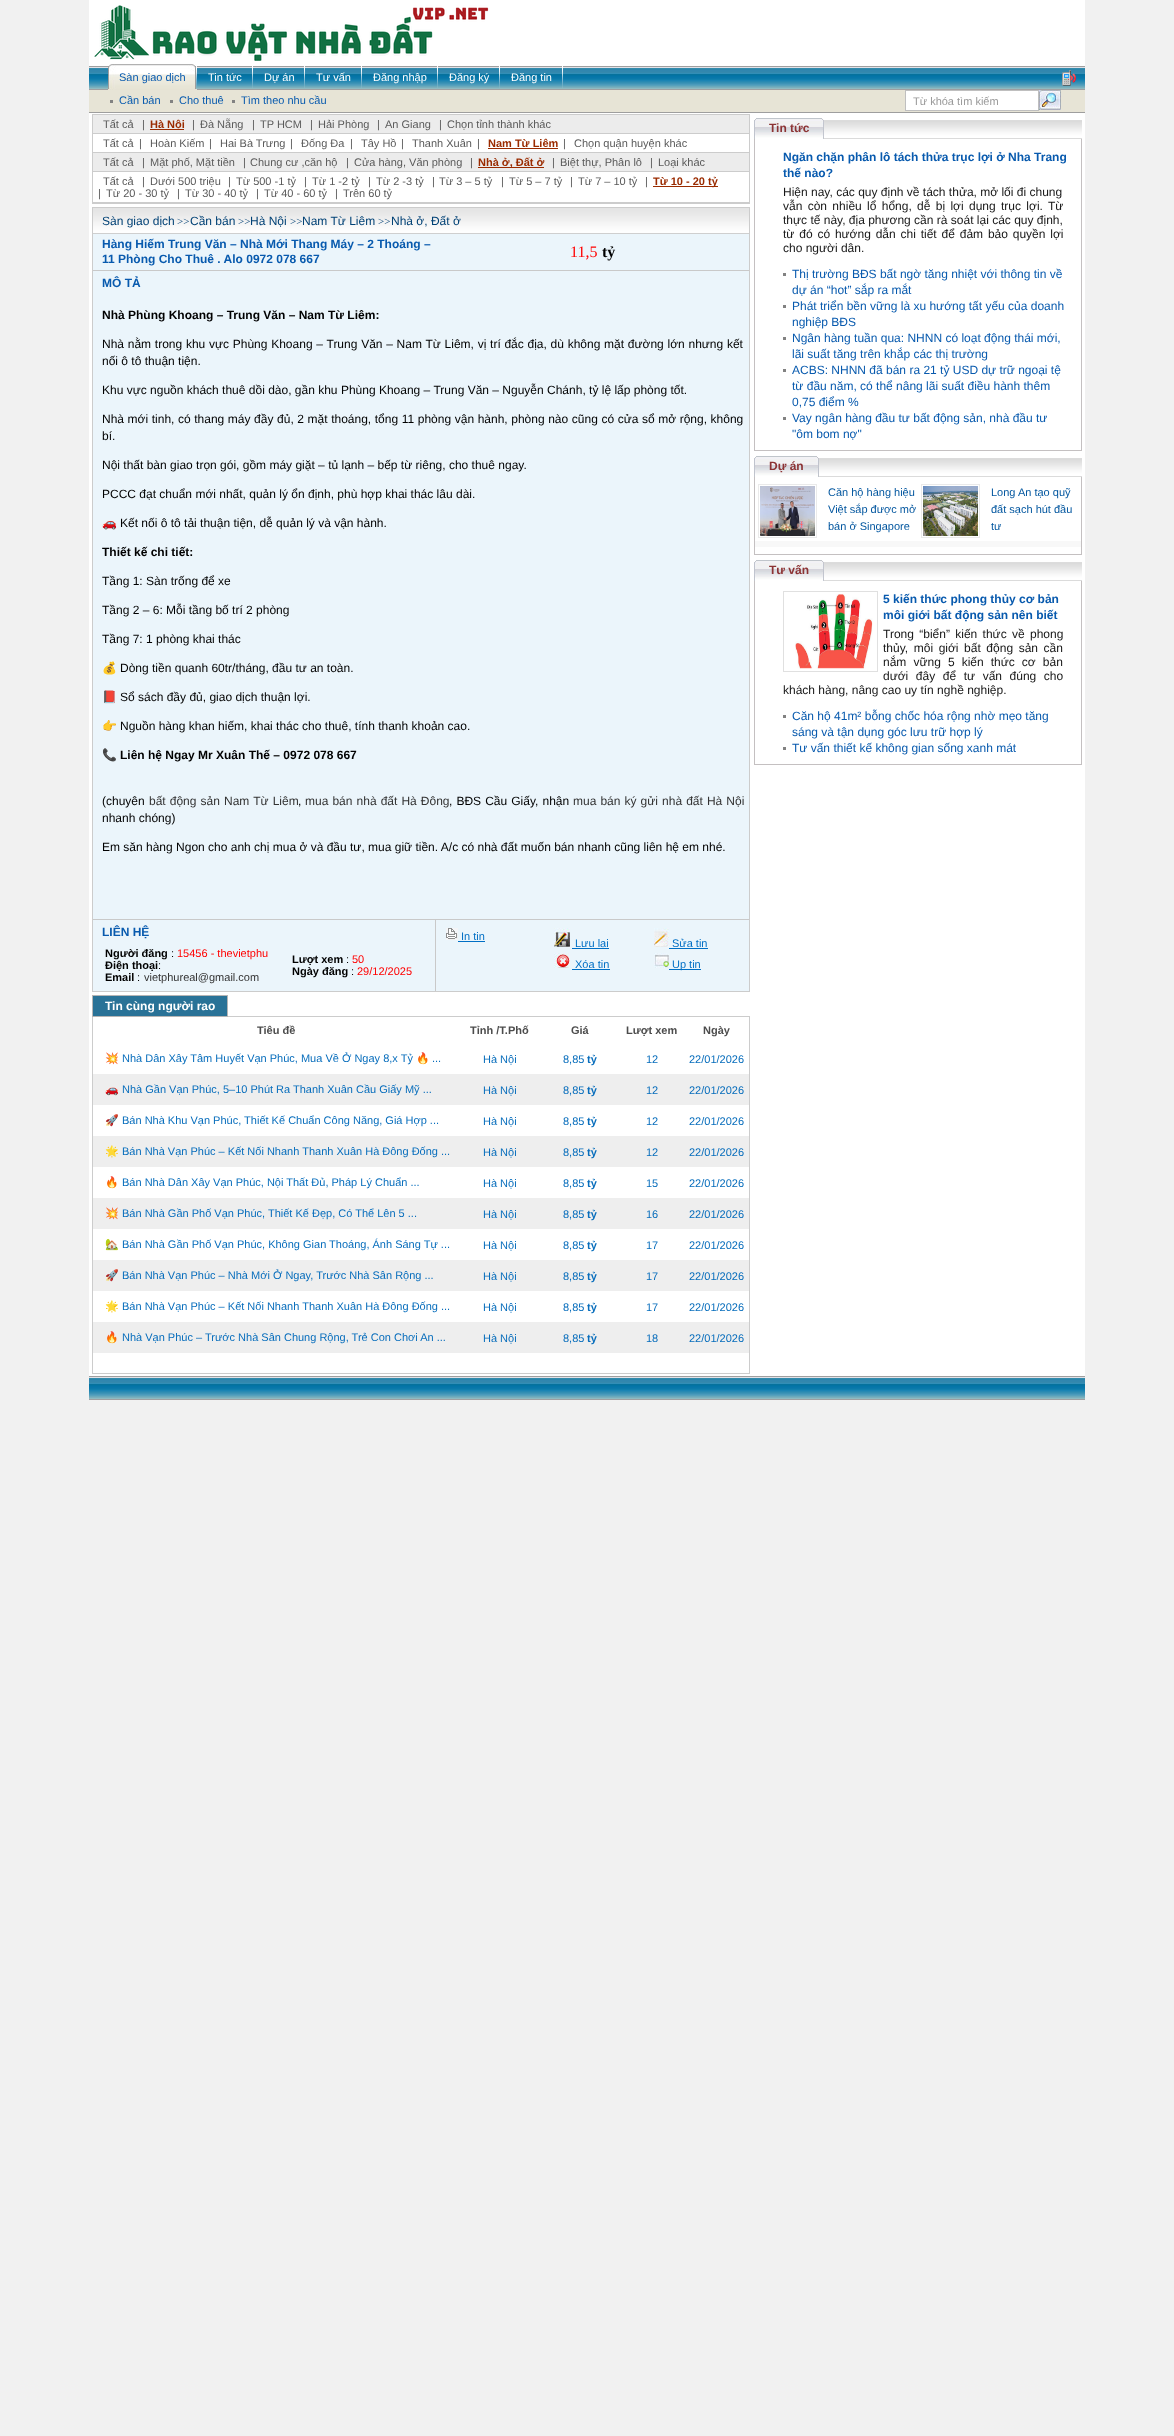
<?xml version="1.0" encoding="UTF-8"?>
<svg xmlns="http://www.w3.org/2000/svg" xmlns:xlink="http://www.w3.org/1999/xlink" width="1174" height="2436">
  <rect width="100%" height="100%" fill="#f1f1f1" />
  <rect x="89" width="996" height="1376" fill="#ffffff" />
  <image x="94" y="5" width="395" height="56" xlink:href="image1.png" />
  <image x="89" y="66" width="996" height="24" xlink:href="image2.png" />
  <image x="108" y="64" width="34" height="26" xlink:href="image3.png" />
  <image x="142" y="64" width="55" height="26" xlink:href="image4.png" />
  <image x="252" y="66" width="1" height="22" xlink:href="image5.png" />
  <image x="304" y="66" width="1" height="22" xlink:href="image5.png" />
  <image x="361" y="66" width="1" height="22" xlink:href="image5.png" />
  <image x="437" y="66" width="1" height="22" xlink:href="image5.png" />
  <image x="499" y="66" width="1" height="22" xlink:href="image5.png" />
  <image x="562" y="66" width="1" height="22" xlink:href="image5.png" />
  <image x="1062" y="70" width="14" height="16" xlink:href="image6.png" />
  <rect x="89" y="90" width="996" height="22" fill="#e7e4d6" />
  <rect x="89" y="112" width="996" height="1" fill="#9e9e9e" />
  <rect x="110" y="100" width="3" height="3" fill="#828282" />
  <rect x="170" y="100" width="3" height="3" fill="#828282" />
  <rect x="232" y="100" width="3" height="3" fill="#828282" />
  <rect x="905.5" y="90.5" width="133" height="20" fill="#ffffff" stroke="#bfbfbf" />
  <image x="1039" y="90" width="22" height="20" xlink:href="image7.png" />
  <rect x="92.5" y="114.5" width="657" height="89" fill="none" stroke="#cccccc" />
  <rect x="93" y="115" width="656" height="18" fill="#ececec" />
  <rect x="93" y="133" width="656" height="1" fill="#cccccc" />
  <rect x="150" y="129" width="34" height="1" fill="#9a2b00" />
  <rect x="93" y="152" width="656" height="1" fill="#cccccc" />
  <rect x="488" y="148" width="70" height="1" fill="#9a2b00" />
  <rect x="93" y="153" width="656" height="18" fill="#ececec" />
  <rect x="93" y="171" width="656" height="1" fill="#cccccc" />
  <rect x="478" y="167" width="66" height="1" fill="#9a2b00" />
  <rect x="93" y="202" width="656" height="1" fill="#cccccc" />
  <rect x="653" y="186" width="65" height="1" fill="#9a2b00" />
  <rect x="93" y="234" width="656" height="757" fill="#ebf5fb" />
  <rect x="92.5" y="207.5" width="657" height="784" fill="none" stroke="#cccccc" />
  <image x="93" y="208" width="656" height="26" xlink:href="image8.png" />
  <rect x="93" y="270" width="656" height="1" fill="#c9c9c9" />
  <rect x="93" y="919" width="656" height="1" fill="#c9c9c9" />
  <rect x="435" y="920" width="1" height="71" fill="#c9c9c9" />
  <image x="446" y="928" width="12" height="12" xlink:href="image9.png" />
  <rect x="458" y="941" width="27" height="1" fill="#006fc5" />
  <image x="554" y="928" width="16" height="19" xlink:href="image10.png" />
  <rect x="572" y="948" width="37" height="1" fill="#006fc5" />
  <image x="654" y="928" width="15" height="19" xlink:href="image11.png" />
  <rect x="669" y="948" width="39" height="1" fill="#006fc5" />
  <image x="554" y="953" width="16" height="15" xlink:href="image12.png" />
  <rect x="572" y="969" width="38" height="1" fill="#006fc5" />
  <image x="654" y="953" width="15" height="15" xlink:href="image13.png" />
  <rect x="669" y="969" width="32" height="1" fill="#006fc5" />
  <rect x="92.5" y="1016.5" width="657" height="357" fill="none" stroke="#cccccc" />
  <rect x="92.5" y="995.5" width="135" height="21" fill="#297297" stroke="#b5b5b5" />
  <rect x="93" y="1074" width="656" height="31" fill="#eeeeee" />
  <rect x="93" y="1136" width="656" height="31" fill="#eeeeee" />
  <rect x="93" y="1198" width="656" height="31" fill="#eeeeee" />
  <rect x="93" y="1260" width="656" height="31" fill="#eeeeee" />
  <rect x="93" y="1322" width="656" height="31" fill="#eeeeee" />
  <image x="824" y="120" width="258" height="19" xlink:href="image14.png" />
  <image x="754" y="118" width="5" height="21" xlink:href="image15.png" />
  <image x="759" y="118" width="65" height="21" xlink:href="image16.png" />
  <rect x="1081" y="139" width="1" height="312" fill="#c4c0c1" />
  <rect x="754" y="450" width="328" height="1" fill="#c4c0c1" />
  <rect x="754" y="139" width="1" height="312" fill="#c4c0c1" />
  <rect x="783" y="273" width="3" height="3" fill="#828282" />
  <rect x="783" y="305" width="3" height="3" fill="#828282" />
  <rect x="783" y="337" width="3" height="3" fill="#828282" />
  <rect x="783" y="369" width="3" height="3" fill="#828282" />
  <rect x="783" y="417" width="3" height="3" fill="#828282" />
  <image x="819" y="458" width="263" height="19" xlink:href="image17.png" />
  <image x="754" y="456" width="5" height="21" xlink:href="image15.png" />
  <image x="759" y="456" width="60" height="21" xlink:href="image18.png" />
  <rect x="1081" y="477" width="1" height="78" fill="#c4c0c1" />
  <rect x="754" y="554" width="328" height="1" fill="#c4c0c1" />
  <rect x="754" y="477" width="1" height="78" fill="#c4c0c1" />
  <rect x="755" y="541" width="326" height="6" fill="#f8f8f8" />
  <rect x="758.5" y="484.5" width="58" height="53" fill="none" stroke="#eaeaea" />
  <image x="760" y="486" width="55" height="50" xlink:href="image19.png" />
  <rect x="921.5" y="484.5" width="58" height="53" fill="none" stroke="#eaeaea" />
  <image x="923" y="486" width="55" height="50" xlink:href="image20.png" />
  <image x="824" y="562" width="258" height="19" xlink:href="image14.png" />
  <image x="754" y="560" width="5" height="21" xlink:href="image15.png" />
  <image x="759" y="560" width="65" height="21" xlink:href="image16.png" />
  <rect x="1081" y="581" width="1" height="184" fill="#c4c0c1" />
  <rect x="754" y="764" width="328" height="1" fill="#c4c0c1" />
  <rect x="754" y="581" width="1" height="184" fill="#c4c0c1" />
  <rect x="783.5" y="591.5" width="94" height="80" fill="none" stroke="#e0e0e0" />
  <image x="795" y="594" width="78" height="75" xlink:href="image21.png" />
  <rect x="783" y="715" width="3" height="3" fill="#828282" />
  <rect x="783" y="747" width="3" height="3" fill="#828282" />
  <image x="89" y="1376" width="996" height="24" xlink:href="image2.png" />
  <text x="119" y="81" style="font-family: Liberation Sans; font-size: 11px; fill: #085aae">Sàn giao dịch</text>
  <text x="208" y="81" style="font-family: Liberation Sans; font-size: 11px; fill: #ffffff">Tin tức</text>
  <text x="264" y="81" style="font-family: Liberation Sans; font-size: 11px; fill: #ffffff">Dự án</text>
  <text x="316" y="81" style="font-family: Liberation Sans; font-size: 11px; fill: #ffffff">Tư vấn</text>
  <text x="373" y="81" style="font-family: Liberation Sans; font-size: 11px; fill: #ffffff">Đăng nhập</text>
  <text x="449" y="81" style="font-family: Liberation Sans; font-size: 11px; fill: #ffffff">Đăng ký</text>
  <text x="511" y="81" style="font-family: Liberation Sans; font-size: 11px; fill: #ffffff">Đăng tin</text>
  <text x="119" y="104" style="font-family: Liberation Sans; font-size: 11px; fill: #085aae">Cần bán</text>
  <text x="179" y="104" style="font-family: Liberation Sans; font-size: 11px; fill: #085aae">Cho thuê</text>
  <text x="241" y="104" style="font-family: Liberation Sans; font-size: 11px; fill: #085aae">Tìm theo nhu cầu</text>
  <text x="913" y="105" style="font-family: Liberation Sans; font-size: 11px; fill: #999999">Từ khóa tìm kiếm</text>
  <text x="103" y="128" style="font-family: Liberation Sans; font-size: 11px; fill: #5a5a5a">Tất cả</text>
  <text x="142" y="128" style="font-family: Liberation Sans; font-size: 11px; fill: #5a5a5a">|</text>
  <text x="150" y="128" style="font-family: Liberation Sans; font-size: 11px; font-weight: bold; fill: #9a2b00">Hà Nội</text>
  <text x="192" y="128" style="font-family: Liberation Sans; font-size: 11px; fill: #5a5a5a">|</text>
  <text x="200" y="128" style="font-family: Liberation Sans; font-size: 11px; fill: #5a5a5a">Đà Nẵng</text>
  <text x="252" y="128" style="font-family: Liberation Sans; font-size: 11px; fill: #5a5a5a">|</text>
  <text x="260" y="128" style="font-family: Liberation Sans; font-size: 11px; fill: #5a5a5a">TP HCM</text>
  <text x="310" y="128" style="font-family: Liberation Sans; font-size: 11px; fill: #5a5a5a">|</text>
  <text x="318" y="128" style="font-family: Liberation Sans; font-size: 11px; fill: #5a5a5a">Hải Phòng</text>
  <text x="377" y="128" style="font-family: Liberation Sans; font-size: 11px; fill: #5a5a5a">|</text>
  <text x="385" y="128" style="font-family: Liberation Sans; font-size: 11px; fill: #5a5a5a">An Giang</text>
  <text x="439" y="128" style="font-family: Liberation Sans; font-size: 11px; fill: #5a5a5a">|</text>
  <text x="447" y="128" style="font-family: Liberation Sans; font-size: 11px; fill: #5a5a5a">Chọn tỉnh thành khác</text>
  <text x="103" y="147" style="font-family: Liberation Sans; font-size: 11px; fill: #5a5a5a">Tất cả</text>
  <text x="139" y="147" style="font-family: Liberation Sans; font-size: 11px; fill: #5a5a5a">|</text>
  <text x="150" y="147" style="font-family: Liberation Sans; font-size: 11px; fill: #5a5a5a">Hoàn Kiếm</text>
  <text x="209" y="147" style="font-family: Liberation Sans; font-size: 11px; fill: #5a5a5a">|</text>
  <text x="220" y="147" style="font-family: Liberation Sans; font-size: 11px; fill: #5a5a5a">Hai Bà Trưng</text>
  <text x="290" y="147" style="font-family: Liberation Sans; font-size: 11px; fill: #5a5a5a">|</text>
  <text x="301" y="147" style="font-family: Liberation Sans; font-size: 11px; fill: #5a5a5a">Đống Đa</text>
  <text x="350" y="147" style="font-family: Liberation Sans; font-size: 11px; fill: #5a5a5a">|</text>
  <text x="361" y="147" style="font-family: Liberation Sans; font-size: 11px; fill: #5a5a5a">Tây Hồ</text>
  <text x="401" y="147" style="font-family: Liberation Sans; font-size: 11px; fill: #5a5a5a">|</text>
  <text x="412" y="147" style="font-family: Liberation Sans; font-size: 11px; fill: #5a5a5a">Thanh Xuân</text>
  <text x="477" y="147" style="font-family: Liberation Sans; font-size: 11px; fill: #5a5a5a">|</text>
  <text x="488" y="147" style="font-family: Liberation Sans; font-size: 11px; font-weight: bold; fill: #9a2b00">Nam Từ Liêm</text>
  <text x="563" y="147" style="font-family: Liberation Sans; font-size: 11px; fill: #5a5a5a">|</text>
  <text x="574" y="147" style="font-family: Liberation Sans; font-size: 11px; fill: #5a5a5a">Chọn quận huyện khác</text>
  <text x="103" y="166" style="font-family: Liberation Sans; font-size: 11px; fill: #5a5a5a">Tất cả</text>
  <text x="142" y="166" style="font-family: Liberation Sans; font-size: 11px; fill: #5a5a5a">|</text>
  <text x="150" y="166" style="font-family: Liberation Sans; font-size: 11px; fill: #5a5a5a">Mặt phố, Mặt tiền</text>
  <text x="243" y="166" style="font-family: Liberation Sans; font-size: 11px; fill: #5a5a5a">|</text>
  <text x="250" y="166" style="font-family: Liberation Sans; font-size: 11px; fill: #5a5a5a">Chung cư ,căn hộ</text>
  <text x="346" y="166" style="font-family: Liberation Sans; font-size: 11px; fill: #5a5a5a">|</text>
  <text x="354" y="166" style="font-family: Liberation Sans; font-size: 11px; fill: #5a5a5a">Cửa hàng, Văn phòng</text>
  <text x="470" y="166" style="font-family: Liberation Sans; font-size: 11px; fill: #5a5a5a">|</text>
  <text x="478" y="166" style="font-family: Liberation Sans; font-size: 11px; font-weight: bold; fill: #9a2b00">Nhà ở, Đất ở</text>
  <text x="552" y="166" style="font-family: Liberation Sans; font-size: 11px; fill: #5a5a5a">|</text>
  <text x="560" y="166" style="font-family: Liberation Sans; font-size: 11px; fill: #5a5a5a">Biệt thự, Phân lô</text>
  <text x="650" y="166" style="font-family: Liberation Sans; font-size: 11px; fill: #5a5a5a">|</text>
  <text x="658" y="166" style="font-family: Liberation Sans; font-size: 11px; fill: #5a5a5a">Loại khác</text>
  <text x="103" y="185" style="font-family: Liberation Sans; font-size: 11px; fill: #5a5a5a">Tất cả</text>
  <text x="142" y="185" style="font-family: Liberation Sans; font-size: 11px; fill: #5a5a5a">|</text>
  <text x="150" y="185" style="font-family: Liberation Sans; font-size: 11px; fill: #5a5a5a">Dưới 500 triệu</text>
  <text x="228" y="185" style="font-family: Liberation Sans; font-size: 11px; fill: #5a5a5a">|</text>
  <text x="236" y="185" style="font-family: Liberation Sans; font-size: 11px; fill: #5a5a5a">Từ 500 -1 tỷ</text>
  <text x="304" y="185" style="font-family: Liberation Sans; font-size: 11px; fill: #5a5a5a">|</text>
  <text x="312" y="185" style="font-family: Liberation Sans; font-size: 11px; fill: #5a5a5a">Từ 1 -2 tỷ</text>
  <text x="368" y="185" style="font-family: Liberation Sans; font-size: 11px; fill: #5a5a5a">|</text>
  <text x="376" y="185" style="font-family: Liberation Sans; font-size: 11px; fill: #5a5a5a">Từ 2 -3 tỷ</text>
  <text x="432" y="185" style="font-family: Liberation Sans; font-size: 11px; fill: #5a5a5a">|</text>
  <text x="439" y="185" style="font-family: Liberation Sans; font-size: 11px; fill: #5a5a5a">Từ 3 – 5 tỷ</text>
  <text x="501" y="185" style="font-family: Liberation Sans; font-size: 11px; fill: #5a5a5a">|</text>
  <text x="509" y="185" style="font-family: Liberation Sans; font-size: 11px; fill: #5a5a5a">Từ 5 – 7 tỷ</text>
  <text x="570" y="185" style="font-family: Liberation Sans; font-size: 11px; fill: #5a5a5a">|</text>
  <text x="578" y="185" style="font-family: Liberation Sans; font-size: 11px; fill: #5a5a5a">Từ 7 – 10 tỷ</text>
  <text x="645" y="185" style="font-family: Liberation Sans; font-size: 11px; fill: #5a5a5a">|</text>
  <text x="653" y="185" style="font-family: Liberation Sans; font-size: 11px; font-weight: bold; fill: #9a2b00">Từ 10 - 20 tỷ</text>
  <text x="98" y="197" style="font-family: Liberation Sans; font-size: 11px; fill: #5a5a5a">|</text>
  <text x="106" y="197" style="font-family: Liberation Sans; font-size: 11px; fill: #5a5a5a">Từ 20 - 30 tỷ</text>
  <text x="177" y="197" style="font-family: Liberation Sans; font-size: 11px; fill: #5a5a5a">|</text>
  <text x="185" y="197" style="font-family: Liberation Sans; font-size: 11px; fill: #5a5a5a">Từ 30 - 40 tỷ</text>
  <text x="256" y="197" style="font-family: Liberation Sans; font-size: 11px; fill: #5a5a5a">|</text>
  <text x="264" y="197" style="font-family: Liberation Sans; font-size: 11px; fill: #5a5a5a">Từ 40 - 60 tỷ</text>
  <text x="335" y="197" style="font-family: Liberation Sans; font-size: 11px; fill: #5a5a5a">|</text>
  <text x="343" y="197" style="font-family: Liberation Sans; font-size: 11px; fill: #5a5a5a">Trên 60 tỷ</text>
  <text x="102" y="225" style="font-family: Liberation Sans; font-size: 12px; fill: #004175">Sàn giao dịch</text>
  <text x="177" y="225" style="font-family: Liberation Serif; font-size: 11px; fill: #004175">&gt;&gt;</text>
  <text x="190" y="225" style="font-family: Liberation Sans; font-size: 12px; fill: #004175">Cần bán</text>
  <text x="238" y="225" style="font-family: Liberation Serif; font-size: 11px; fill: #004175">&gt;&gt;</text>
  <text x="250" y="225" style="font-family: Liberation Sans; font-size: 12px; fill: #004175">Hà Nội</text>
  <text x="290" y="225" style="font-family: Liberation Serif; font-size: 11px; fill: #004175">&gt;&gt;</text>
  <text x="302" y="225" style="font-family: Liberation Sans; font-size: 12px; fill: #004175">Nam Từ Liêm</text>
  <text x="378" y="225" style="font-family: Liberation Serif; font-size: 11px; fill: #004175">&gt;&gt;</text>
  <text x="391" y="225" style="font-family: Liberation Sans; font-size: 12px; fill: #004175">Nhà ở, Đất ở</text>
  <text x="102" y="248" style="font-family: Liberation Sans; font-size: 12px; font-weight: bold; fill: #085aae">Hàng Hiếm Trung Văn – Nhà Mới Thang Máy – 2 Thoáng –</text>
  <text x="102" y="263" style="font-family: Liberation Sans; font-size: 12px; font-weight: bold; fill: #085aae">11 Phòng Cho Thuê . Alo 0972 078 667</text>
  <text x="570" y="257" style="font-family: Liberation Serif; font-size: 16px; fill: #ff0000">11,5</text>
  <text x="602" y="257" style="font-family: Liberation Serif; font-size: 16px; font-weight: bold; fill: #000000">tỷ</text>
  <text x="102" y="287" style="font-family: Liberation Sans; font-size: 12px; font-weight: bold; fill: #085aae">MÔ TẢ</text>
  <text x="102" y="319" style="font-family: Liberation Sans; font-size: 12px; font-weight: bold; fill: #000000">Nhà Phùng Khoang – Trung Văn – Nam Từ Liêm:</text>
  <text x="102" y="348" word-spacing="0.4" style="font-family: Liberation Sans; font-size: 12px; fill: #000000">Nhà nằm trong khu vực Phùng Khoang – Trung Văn – Nam Từ Liêm, vị trí đắc địa, dù không mặt đường lớn nhưng kết</text>
  <text x="102" y="365" style="font-family: Liberation Sans; font-size: 12px; fill: #000000">nối ô tô thuận tiện.</text>
  <text x="102" y="394" style="font-family: Liberation Sans; font-size: 12px; fill: #000000">Khu vực nguồn khách thuê dồi dào, gần khu Phùng Khoang – Trung Văn – Nguyễn Chánh, tỷ lệ lấp phòng tốt.</text>
  <text x="102" y="423" word-spacing="0.25" style="font-family: Liberation Sans; font-size: 12px; fill: #000000">Nhà mới tinh, có thang máy đầy đủ, 2 mặt thoáng, tổng 11 phòng vận hành, phòng nào cũng có cửa sổ mở rộng, không</text>
  <text x="102" y="440" style="font-family: Liberation Sans; font-size: 12px; fill: #000000">bí.</text>
  <text x="102" y="469" style="font-family: Liberation Sans; font-size: 12px; fill: #000000">Nội thất bàn giao trọn gói, gồm máy giặt – tủ lạnh – bếp từ riêng, cho thuê ngay.</text>
  <text x="102" y="498" style="font-family: Liberation Sans; font-size: 12px; fill: #000000">PCCC đạt chuẩn mới nhất, quản lý ổn định, phù hợp khai thác lâu dài.</text>
  <text x="102" y="527" style="font-family: Noto Color Emoji; font-size: 12px; fill: #000000">🚗</text>
  <text x="120" y="527" style="font-family: Liberation Sans; font-size: 12px; fill: #000000">Kết nối ô tô tải thuận tiện, dễ quản lý và vận hành.</text>
  <text x="102" y="556" style="font-family: Liberation Sans; font-size: 12px; font-weight: bold; fill: #000000">Thiết kế chi tiết:</text>
  <text x="102" y="585" style="font-family: Liberation Sans; font-size: 12px; fill: #000000">Tầng 1: Sàn trống để xe</text>
  <text x="102" y="614" style="font-family: Liberation Sans; font-size: 12px; fill: #000000">Tầng 2 – 6: Mỗi tầng bố trí 2 phòng</text>
  <text x="102" y="643" style="font-family: Liberation Sans; font-size: 12px; fill: #000000">Tầng 7: 1 phòng khai thác</text>
  <text x="102" y="672" style="font-family: Noto Color Emoji; font-size: 12px; fill: #000000">💰</text>
  <text x="120" y="672" style="font-family: Liberation Sans; font-size: 12px; fill: #000000">Dòng tiền quanh 60tr/tháng, đầu tư an toàn.</text>
  <text x="102" y="701" style="font-family: Noto Color Emoji; font-size: 12px; fill: #000000">📕</text>
  <text x="120" y="701" style="font-family: Liberation Sans; font-size: 12px; fill: #000000">Sổ sách đầy đủ, giao dịch thuận lợi.</text>
  <text x="102" y="730" style="font-family: Noto Color Emoji; font-size: 12px; fill: #000000">👉</text>
  <text x="120" y="730" style="font-family: Liberation Sans; font-size: 12px; fill: #000000">Nguồn hàng khan hiếm, khai thác cho thuê, tính thanh khoản cao.</text>
  <text x="102" y="759" style="font-family: Noto Color Emoji; font-size: 12px; fill: #000000">📞</text>
  <text x="120" y="759" style="font-family: Liberation Sans; font-size: 12px; font-weight: bold; fill: #000000">Liên hệ Ngay Mr Xuân Thế – 0972 078 667</text>
  <text x="102" y="805" style="font-family: Liberation Sans; font-size: 12px; fill: #000000">(chuyên</text>
  <text x="149" y="805" word-spacing="0.75" style="font-family: Liberation Sans; font-size: 12px; fill: #333333">bất động sản Nam Từ Liêm</text>
  <text x="298" y="805" style="font-family: Liberation Sans; font-size: 12px; fill: #000000">,</text>
  <text x="305" y="805" word-spacing="0.75" style="font-family: Liberation Sans; font-size: 12px; fill: #333333">mua bán nhà đất Hà Đông</text>
  <text x="449" y="805" word-spacing="0.75" style="font-family: Liberation Sans; font-size: 12px; fill: #000000">, BĐS Cầu Giấy, nhận</text>
  <text x="573" y="805" word-spacing="0.75" style="font-family: Liberation Sans; font-size: 12px; fill: #333333">mua bán ký gửi nhà đất Hà Nội</text>
  <text x="102" y="822" style="font-family: Liberation Sans; font-size: 12px; fill: #000000">nhanh chóng)</text>
  <text x="102" y="851" style="font-family: Liberation Sans; font-size: 12px; fill: #000000">Em săn hàng Ngon cho anh chị mua ở và đầu tư, mua giữ tiền. A/c có nhà đất muốn bán nhanh cũng liên hệ em nhé.</text>
  <text x="102" y="936" style="font-family: Liberation Sans; font-size: 12px; font-weight: bold; fill: #085aae">LIÊN HỆ</text>
  <text x="105" y="957" style="font-family: Liberation Sans; font-size: 11px; font-weight: bold; fill: #000000">Người đăng</text>
  <text x="171" y="957" style="font-family: Liberation Sans; font-size: 11px; fill: #000000">:</text>
  <text x="177" y="957" style="font-family: Liberation Sans; font-size: 11px; fill: #ff0000">15456 - thevietphu</text>
  <text x="105" y="969" style="font-family: Liberation Sans; font-size: 11px; font-weight: bold; fill: #000000">Điện thoại</text>
  <text x="158" y="969" style="font-family: Liberation Sans; font-size: 11px; fill: #000000">:</text>
  <text x="105" y="981" style="font-family: Liberation Sans; font-size: 11px; font-weight: bold; fill: #000000">Email</text>
  <text x="137" y="981" style="font-family: Liberation Sans; font-size: 11px; fill: #000000">:</text>
  <text x="144" y="981" style="font-family: Liberation Sans; font-size: 11px; fill: #333333">vietphureal@gmail.com</text>
  <text x="292" y="963" style="font-family: Liberation Sans; font-size: 11px; font-weight: bold; fill: #000000">Lượt xem</text>
  <text x="346" y="963" style="font-family: Liberation Sans; font-size: 11px; fill: #000000">:</text>
  <text x="352" y="963" style="font-family: Liberation Sans; font-size: 11px; fill: #ff0000">50</text>
  <text x="292" y="975" style="font-family: Liberation Sans; font-size: 11px; font-weight: bold; fill: #000000">Ngày đăng</text>
  <text x="351" y="975" style="font-family: Liberation Sans; font-size: 11px; fill: #000000">:</text>
  <text x="357" y="975" style="font-family: Liberation Sans; font-size: 11px; fill: #ff0000">29/12/2025</text>
  <text x="461" y="940" style="font-family: Liberation Sans; font-size: 11px; fill: #006fc5">In tin</text>
  <text x="575" y="947" style="font-family: Liberation Sans; font-size: 11px; fill: #006fc5">Lưu lại</text>
  <text x="672" y="947" style="font-family: Liberation Sans; font-size: 11px; fill: #006fc5">Sửa tin</text>
  <text x="575" y="968" style="font-family: Liberation Sans; font-size: 11px; fill: #006fc5">Xóa tin</text>
  <text x="672" y="968" style="font-family: Liberation Sans; font-size: 11px; fill: #006fc5">Up tin</text>
  <text x="105" y="1010" style="font-family: Liberation Sans; font-size: 12px; font-weight: bold; fill: #ffffff">Tin cùng người rao</text>
  <text x="257" y="1034" style="font-family: Liberation Sans; font-size: 11px; font-weight: bold; fill: #4c4c4c">Tiêu đề</text>
  <text x="470" y="1034" style="font-family: Liberation Sans; font-size: 11px; font-weight: bold; fill: #4c4c4c">Tỉnh /T.Phố</text>
  <text x="571" y="1034" style="font-family: Liberation Sans; font-size: 11px; font-weight: bold; fill: #4c4c4c">Giá</text>
  <text x="626" y="1034" style="font-family: Liberation Sans; font-size: 11px; font-weight: bold; fill: #4c4c4c">Lượt xem</text>
  <text x="703" y="1034" style="font-family: Liberation Sans; font-size: 11px; font-weight: bold; fill: #4c4c4c">Ngày</text>
  <text x="105" y="1062" style="font-family: Noto Color Emoji; font-size: 11px; fill: #076dbc">💥</text>
  <text x="122" y="1062" style="font-family: Liberation Sans; font-size: 11px; fill: #076dbc">Nhà Dân Xây Tâm Huyết Vạn Phúc, Mua Về Ở Ngay 8,x Tỷ</text>
  <text x="416" y="1062" style="font-family: Noto Color Emoji; font-size: 11px; fill: #076dbc">🔥</text>
  <text x="432" y="1062" style="font-family: Liberation Sans; font-size: 11px; fill: #076dbc">...</text>
  <text x="483" y="1063" style="font-family: Liberation Sans; font-size: 11px; fill: #076dbc">Hà Nội</text>
  <text x="563" y="1063" style="font-family: Liberation Sans; font-size: 11px; fill: #076dbc">8,85</text>
  <text x="587" y="1063" style="font-family: Liberation Sans; font-size: 11px; font-weight: bold; fill: #076dbc">tỷ</text>
  <text x="646" y="1063" style="font-family: Liberation Sans; font-size: 11px; fill: #076dbc">12</text>
  <text x="689" y="1063" style="font-family: Liberation Sans; font-size: 11px; fill: #076dbc">22/01/2026</text>
  <text x="105" y="1093" style="font-family: Noto Color Emoji; font-size: 11px; fill: #076dbc">🚗</text>
  <text x="122" y="1093" style="font-family: Liberation Sans; font-size: 11px; fill: #076dbc">Nhà Gần Vạn Phúc, 5–10 Phút Ra Thanh Xuân Cầu Giấy Mỹ ...</text>
  <text x="483" y="1094" style="font-family: Liberation Sans; font-size: 11px; fill: #076dbc">Hà Nội</text>
  <text x="563" y="1094" style="font-family: Liberation Sans; font-size: 11px; fill: #076dbc">8,85</text>
  <text x="587" y="1094" style="font-family: Liberation Sans; font-size: 11px; font-weight: bold; fill: #076dbc">tỷ</text>
  <text x="646" y="1094" style="font-family: Liberation Sans; font-size: 11px; fill: #076dbc">12</text>
  <text x="689" y="1094" style="font-family: Liberation Sans; font-size: 11px; fill: #076dbc">22/01/2026</text>
  <text x="105" y="1124" style="font-family: Noto Color Emoji; font-size: 11px; fill: #076dbc">🚀</text>
  <text x="122" y="1124" style="font-family: Liberation Sans; font-size: 11px; fill: #076dbc">Bán Nhà Khu Vạn Phúc, Thiết Kế Chuẩn Công Năng, Giá Hợp ...</text>
  <text x="483" y="1125" style="font-family: Liberation Sans; font-size: 11px; fill: #076dbc">Hà Nội</text>
  <text x="563" y="1125" style="font-family: Liberation Sans; font-size: 11px; fill: #076dbc">8,85</text>
  <text x="587" y="1125" style="font-family: Liberation Sans; font-size: 11px; font-weight: bold; fill: #076dbc">tỷ</text>
  <text x="646" y="1125" style="font-family: Liberation Sans; font-size: 11px; fill: #076dbc">12</text>
  <text x="689" y="1125" style="font-family: Liberation Sans; font-size: 11px; fill: #076dbc">22/01/2026</text>
  <text x="105" y="1155" style="font-family: Noto Color Emoji; font-size: 11px; fill: #076dbc">🌟</text>
  <text x="122" y="1155" style="font-family: Liberation Sans; font-size: 11px; fill: #076dbc">Bán Nhà Vạn Phúc – Kết Nối Nhanh Thanh Xuân Hà Đông Đống ...</text>
  <text x="483" y="1156" style="font-family: Liberation Sans; font-size: 11px; fill: #076dbc">Hà Nội</text>
  <text x="563" y="1156" style="font-family: Liberation Sans; font-size: 11px; fill: #076dbc">8,85</text>
  <text x="587" y="1156" style="font-family: Liberation Sans; font-size: 11px; font-weight: bold; fill: #076dbc">tỷ</text>
  <text x="646" y="1156" style="font-family: Liberation Sans; font-size: 11px; fill: #076dbc">12</text>
  <text x="689" y="1156" style="font-family: Liberation Sans; font-size: 11px; fill: #076dbc">22/01/2026</text>
  <text x="105" y="1186" style="font-family: Noto Color Emoji; font-size: 11px; fill: #076dbc">🔥</text>
  <text x="122" y="1186" style="font-family: Liberation Sans; font-size: 11px; fill: #076dbc">Bán Nhà Dân Xây Vạn Phúc, Nội Thất Đủ, Pháp Lý Chuẩn ...</text>
  <text x="483" y="1187" style="font-family: Liberation Sans; font-size: 11px; fill: #076dbc">Hà Nội</text>
  <text x="563" y="1187" style="font-family: Liberation Sans; font-size: 11px; fill: #076dbc">8,85</text>
  <text x="587" y="1187" style="font-family: Liberation Sans; font-size: 11px; font-weight: bold; fill: #076dbc">tỷ</text>
  <text x="646" y="1187" style="font-family: Liberation Sans; font-size: 11px; fill: #076dbc">15</text>
  <text x="689" y="1187" style="font-family: Liberation Sans; font-size: 11px; fill: #076dbc">22/01/2026</text>
  <text x="105" y="1217" style="font-family: Noto Color Emoji; font-size: 11px; fill: #076dbc">💥</text>
  <text x="122" y="1217" style="font-family: Liberation Sans; font-size: 11px; fill: #076dbc">Bán Nhà Gần Phố Vạn Phúc, Thiết Kế Đẹp, Có Thể Lên 5 ...</text>
  <text x="483" y="1218" style="font-family: Liberation Sans; font-size: 11px; fill: #076dbc">Hà Nội</text>
  <text x="563" y="1218" style="font-family: Liberation Sans; font-size: 11px; fill: #076dbc">8,85</text>
  <text x="587" y="1218" style="font-family: Liberation Sans; font-size: 11px; font-weight: bold; fill: #076dbc">tỷ</text>
  <text x="646" y="1218" style="font-family: Liberation Sans; font-size: 11px; fill: #076dbc">16</text>
  <text x="689" y="1218" style="font-family: Liberation Sans; font-size: 11px; fill: #076dbc">22/01/2026</text>
  <text x="105" y="1248" style="font-family: Noto Color Emoji; font-size: 11px; fill: #076dbc">🏡</text>
  <text x="122" y="1248" style="font-family: Liberation Sans; font-size: 11px; fill: #076dbc">Bán Nhà Gần Phố Vạn Phúc, Không Gian Thoáng, Ánh Sáng Tự ...</text>
  <text x="483" y="1249" style="font-family: Liberation Sans; font-size: 11px; fill: #076dbc">Hà Nội</text>
  <text x="563" y="1249" style="font-family: Liberation Sans; font-size: 11px; fill: #076dbc">8,85</text>
  <text x="587" y="1249" style="font-family: Liberation Sans; font-size: 11px; font-weight: bold; fill: #076dbc">tỷ</text>
  <text x="646" y="1249" style="font-family: Liberation Sans; font-size: 11px; fill: #076dbc">17</text>
  <text x="689" y="1249" style="font-family: Liberation Sans; font-size: 11px; fill: #076dbc">22/01/2026</text>
  <text x="105" y="1279" style="font-family: Noto Color Emoji; font-size: 11px; fill: #076dbc">🚀</text>
  <text x="122" y="1279" style="font-family: Liberation Sans; font-size: 11px; fill: #076dbc">Bán Nhà Vạn Phúc – Nhà Mới Ở Ngay, Trước Nhà Sân Rộng ...</text>
  <text x="483" y="1280" style="font-family: Liberation Sans; font-size: 11px; fill: #076dbc">Hà Nội</text>
  <text x="563" y="1280" style="font-family: Liberation Sans; font-size: 11px; fill: #076dbc">8,85</text>
  <text x="587" y="1280" style="font-family: Liberation Sans; font-size: 11px; font-weight: bold; fill: #076dbc">tỷ</text>
  <text x="646" y="1280" style="font-family: Liberation Sans; font-size: 11px; fill: #076dbc">17</text>
  <text x="689" y="1280" style="font-family: Liberation Sans; font-size: 11px; fill: #076dbc">22/01/2026</text>
  <text x="105" y="1310" style="font-family: Noto Color Emoji; font-size: 11px; fill: #076dbc">🌟</text>
  <text x="122" y="1310" style="font-family: Liberation Sans; font-size: 11px; fill: #076dbc">Bán Nhà Vạn Phúc – Kết Nối Nhanh Thanh Xuân Hà Đông Đống ...</text>
  <text x="483" y="1311" style="font-family: Liberation Sans; font-size: 11px; fill: #076dbc">Hà Nội</text>
  <text x="563" y="1311" style="font-family: Liberation Sans; font-size: 11px; fill: #076dbc">8,85</text>
  <text x="587" y="1311" style="font-family: Liberation Sans; font-size: 11px; font-weight: bold; fill: #076dbc">tỷ</text>
  <text x="646" y="1311" style="font-family: Liberation Sans; font-size: 11px; fill: #076dbc">17</text>
  <text x="689" y="1311" style="font-family: Liberation Sans; font-size: 11px; fill: #076dbc">22/01/2026</text>
  <text x="105" y="1341" style="font-family: Noto Color Emoji; font-size: 11px; fill: #076dbc">🔥</text>
  <text x="122" y="1341" style="font-family: Liberation Sans; font-size: 11px; fill: #076dbc">Nhà Vạn Phúc – Trước Nhà Sân Chung Rộng, Trẻ Con Chơi An ...</text>
  <text x="483" y="1342" style="font-family: Liberation Sans; font-size: 11px; fill: #076dbc">Hà Nội</text>
  <text x="563" y="1342" style="font-family: Liberation Sans; font-size: 11px; fill: #076dbc">8,85</text>
  <text x="587" y="1342" style="font-family: Liberation Sans; font-size: 11px; font-weight: bold; fill: #076dbc">tỷ</text>
  <text x="646" y="1342" style="font-family: Liberation Sans; font-size: 11px; fill: #076dbc">18</text>
  <text x="689" y="1342" style="font-family: Liberation Sans; font-size: 11px; fill: #076dbc">22/01/2026</text>
  <text x="769" y="132" style="font-family: Liberation Sans; font-size: 12px; font-weight: bold; fill: #8c3334">Tin tức</text>
  <text x="783" y="161" style="font-family: Liberation Sans; font-size: 12px; font-weight: bold; fill: #085aae">Ngăn chặn phân lô tách thửa trục lợi ở Nha Trang</text>
  <text x="783" y="177" style="font-family: Liberation Sans; font-size: 12px; font-weight: bold; fill: #085aae">thế nào?</text>
  <text x="783" y="196" style="font-family: Liberation Sans; font-size: 12px; fill: #171717">Hiện nay, các quy định về tách thửa, mở lối đi chung</text>
  <text x="783" y="210" word-spacing="2" style="font-family: Liberation Sans; font-size: 12px; fill: #171717">vẫn còn nhiều lổ hổng, dễ bị lợi dụng trục lợi. Từ</text>
  <text x="783" y="224" style="font-family: Liberation Sans; font-size: 12px; fill: #171717">thực tế này, địa phương cần rà soát lại các quy định,</text>
  <text x="783" y="238" word-spacing="1.5" style="font-family: Liberation Sans; font-size: 12px; fill: #171717">từ đó có hướng dẫn chi tiết để đảm bảo quyền lợi</text>
  <text x="783" y="252" style="font-family: Liberation Sans; font-size: 12px; fill: #171717">cho người dân.</text>
  <text x="792" y="278" style="font-family: Liberation Sans; font-size: 12px; fill: #085aae">Thị trường BĐS bất ngờ tăng nhiệt với thông tin về</text>
  <text x="792" y="294" style="font-family: Liberation Sans; font-size: 12px; fill: #085aae">dự án “hot” sắp ra mắt</text>
  <text x="792" y="310" style="font-family: Liberation Sans; font-size: 12px; fill: #085aae">Phát triển bền vững là xu hướng tất yếu của doanh</text>
  <text x="792" y="326" style="font-family: Liberation Sans; font-size: 12px; fill: #085aae">nghiệp BĐS</text>
  <text x="792" y="342" style="font-family: Liberation Sans; font-size: 12px; fill: #085aae">Ngân hàng tuần qua: NHNN có loạt động thái mới,</text>
  <text x="792" y="358" style="font-family: Liberation Sans; font-size: 12px; fill: #085aae">lãi suất tăng trên khắp các thị trường</text>
  <text x="792" y="374" style="font-family: Liberation Sans; font-size: 12px; fill: #085aae">ACBS: NHNN đã bán ra 21 tỷ USD dự trữ ngoại tệ</text>
  <text x="792" y="390" style="font-family: Liberation Sans; font-size: 12px; fill: #085aae">từ đầu năm, có thể nâng lãi suất điều hành thêm</text>
  <text x="792" y="406" style="font-family: Liberation Sans; font-size: 12px; fill: #085aae">0,75 điểm %</text>
  <text x="792" y="422" style="font-family: Liberation Sans; font-size: 12px; fill: #085aae">Vay ngân hàng đầu tư bất động sản, nhà đầu tư</text>
  <text x="792" y="438" style="font-family: Liberation Sans; font-size: 12px; fill: #085aae">"ôm bom nợ"</text>
  <text x="769" y="470" style="font-family: Liberation Sans; font-size: 12px; font-weight: bold; fill: #8c3334">Dự án</text>
  <text x="828" y="496" style="font-family: Liberation Sans; font-size: 11px; fill: #02569f">Căn hộ hàng hiệu</text>
  <text x="828" y="513" style="font-family: Liberation Sans; font-size: 11px; fill: #02569f">Việt sắp được mở</text>
  <text x="828" y="530" style="font-family: Liberation Sans; font-size: 11px; fill: #02569f">bán ở Singapore</text>
  <text x="991" y="496" style="font-family: Liberation Sans; font-size: 11px; fill: #02569f">Long An tạo quỹ</text>
  <text x="991" y="513" style="font-family: Liberation Sans; font-size: 11px; fill: #02569f">đất sạch hút đầu</text>
  <text x="991" y="530" style="font-family: Liberation Sans; font-size: 11px; fill: #02569f">tư</text>
  <text x="769" y="574" style="font-family: Liberation Sans; font-size: 12px; font-weight: bold; fill: #8c3334">Tư vấn</text>
  <text x="883" y="603" style="font-family: Liberation Sans; font-size: 12px; font-weight: bold; fill: #085aae">5 kiến thức phong thủy cơ bản</text>
  <text x="883" y="619" style="font-family: Liberation Sans; font-size: 12px; font-weight: bold; fill: #085aae">môi giới bất động sản nên biết</text>
  <text x="883" y="638" word-spacing="2" style="font-family: Liberation Sans; font-size: 12px; fill: #171717">Trong “biển” kiến thức về phong</text>
  <text x="883" y="652" word-spacing="2.25" style="font-family: Liberation Sans; font-size: 12px; fill: #171717">thủy, môi giới bất động sản cần</text>
  <text x="883" y="666" word-spacing="3.75" style="font-family: Liberation Sans; font-size: 12px; fill: #171717">nắm vững 5 kiến thức cơ bản</text>
  <text x="883" y="680" word-spacing="4.25" style="font-family: Liberation Sans; font-size: 12px; fill: #171717">dưới đây để tư vấn đúng cho</text>
  <text x="783" y="694" style="font-family: Liberation Sans; font-size: 12px; fill: #171717">khách hàng, nâng cao uy tín nghề nghiệp.</text>
  <text x="792" y="720" style="font-family: Liberation Sans; font-size: 12px; fill: #085aae">Căn hộ 41m² bỗng chốc hóa rộng nhờ mẹo tăng</text>
  <text x="792" y="736" style="font-family: Liberation Sans; font-size: 12px; fill: #085aae">sáng và tận dụng góc lưu trữ hợp lý</text>
  <text x="792" y="752" style="font-family: Liberation Sans; font-size: 12px; fill: #085aae">Tư vấn thiết kế không gian sống xanh mát</text>
</svg>
